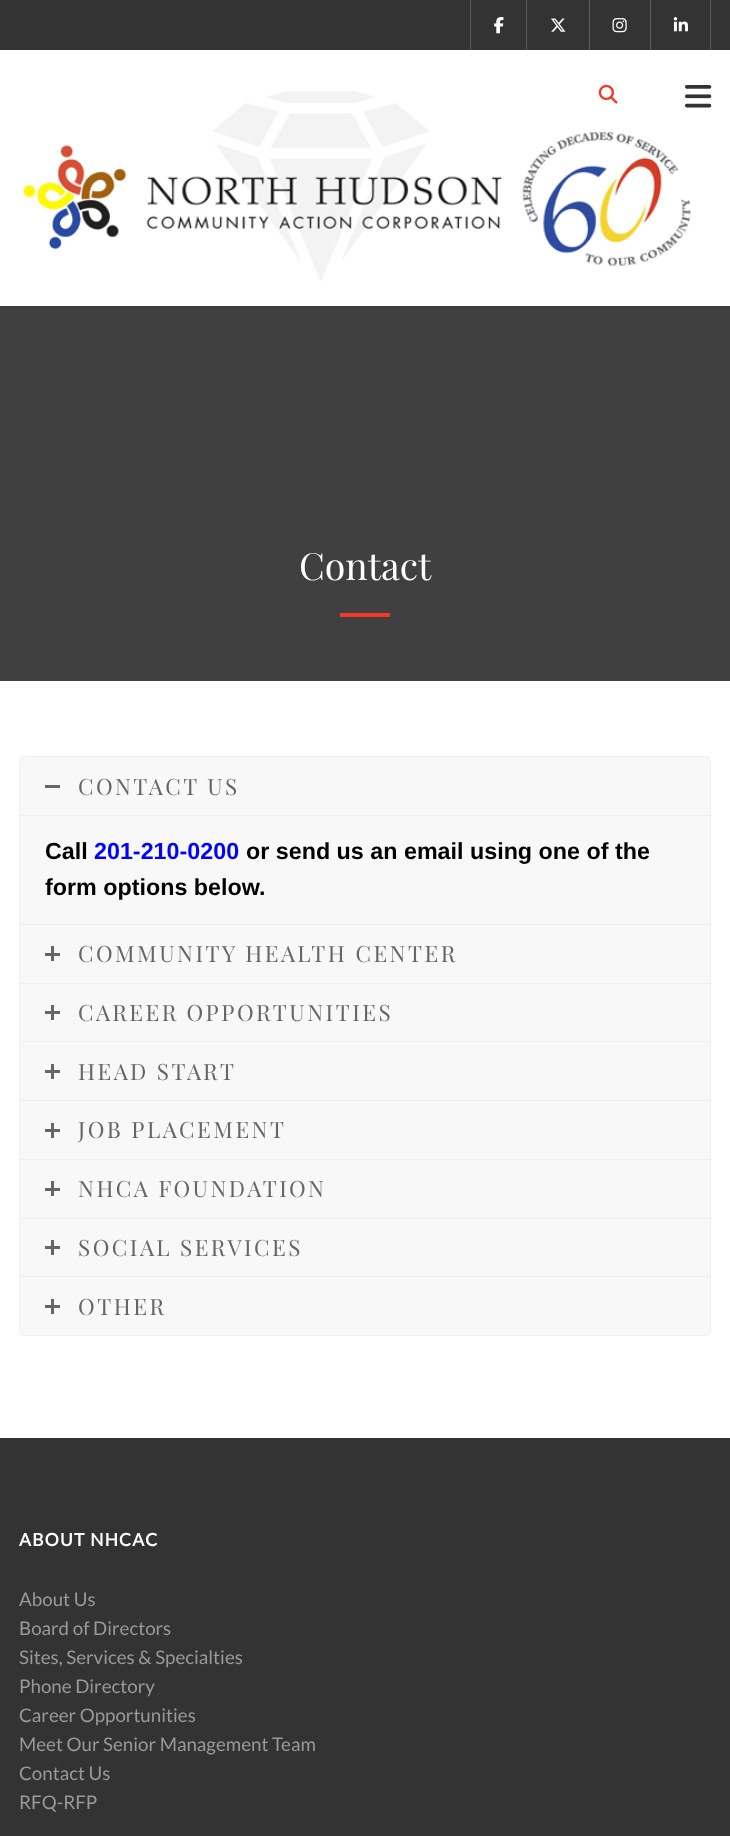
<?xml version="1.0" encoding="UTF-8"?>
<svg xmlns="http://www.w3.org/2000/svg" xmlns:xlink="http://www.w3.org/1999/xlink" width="730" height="1836">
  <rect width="100%" height="100%" fill="#ffffff" />
  <rect width="730" height="50" fill="#333333" />
  <rect x="470" width="1" height="50" fill="#5c5c5c" />
  <rect x="526" width="1" height="50" fill="#5c5c5c" />
  <image x="494" y="17" width="10" height="17" xlink:href="image1.png" />
  <rect x="589" width="1" height="50" fill="#5c5c5c" />
  <image x="551" y="18" width="15" height="14" xlink:href="image2.png" />
  <rect x="650" width="1" height="50" fill="#5c5c5c" />
  <image x="612" y="18" width="15" height="15" xlink:href="image3.png" />
  <rect x="710" width="1" height="50" fill="#5c5c5c" />
  <image x="673" y="17" width="15" height="15" xlink:href="image4.png" />
  <rect y="306" width="730" height="2" fill="#3d3d3d" />
  <image x="19" y="91" width="673" height="190" xlink:href="image7.png" />
  <image x="598" y="84" width="20" height="20" xlink:href="image5.png" />
  <image x="685" y="85" width="27" height="23" xlink:href="image6.png" />
  <rect y="308" width="730" height="373" fill="#404040" />
  <rect x="340" y="613" width="50" height="4" fill="#f23827" />
  <path d="M 25 756.5 h 680 c 3 0 5.5 2.5 5.5 5.5 v 53.5 h -691 v -53.5 c 0 -3 2.5 -5.5 5.5 -5.5 z" fill="#f8f8f8" stroke="#f0f0f0" />
  <rect x="45" y="785" width="15" height="3" fill="#666666" />
  <rect x="19.5" y="924.5" width="691" height="59" fill="#f8f8f8" stroke="#f0f0f0" />
  <rect x="19.5" y="815.5" width="691" height="109" fill="#f8f8f8" stroke="#f0f0f0" />
  <rect x="45" y="953" width="15" height="3" fill="#666666" />
  <rect x="51" y="946" width="3" height="15" fill="#666666" />
  <rect x="20" y="984" width="690" height="57" fill="#f8f8f8" />
  <rect x="19.5" y="983.5" width="691" height="59" fill="none" stroke="#f0f0f0" />
  <rect x="45" y="1011" width="15" height="3" fill="#666666" />
  <rect x="51" y="1005" width="3" height="15" fill="#666666" />
  <rect x="19.5" y="1041.5" width="691" height="59" fill="#f8f8f8" stroke="#f0f0f0" />
  <rect x="45" y="1070" width="15" height="3" fill="#666666" />
  <rect x="51" y="1064" width="3" height="15" fill="#666666" />
  <rect x="19.5" y="1100.5" width="691" height="59" fill="#f8f8f8" stroke="#f0f0f0" />
  <rect x="45" y="1129" width="15" height="3" fill="#666666" />
  <rect x="51" y="1123" width="3" height="15" fill="#666666" />
  <rect x="19.5" y="1159.5" width="691" height="59" fill="#f8f8f8" stroke="#f0f0f0" />
  <rect x="45" y="1188" width="15" height="3" fill="#666666" />
  <rect x="51" y="1181" width="3" height="15" fill="#666666" />
  <rect x="20" y="1219" width="690" height="57" fill="#f8f8f8" />
  <rect x="19.5" y="1218.5" width="691" height="59" fill="none" stroke="#f0f0f0" />
  <rect x="45" y="1246" width="15" height="3" fill="#666666" />
  <rect x="51" y="1240" width="3" height="15" fill="#666666" />
  <path d="M 19.5 1276.5 h 691 v 53.5 c 0 3 -2.5 5.5 -5.5 5.5 h -680 c -3 0 -5.5 -2.5 -5.5 -5.5 z" fill="#f8f8f8" stroke="#f0f0f0" />
  <rect x="45" y="1305" width="15" height="3" fill="#666666" />
  <rect x="51" y="1299" width="3" height="15" fill="#666666" />
  <rect y="1438" width="730" height="398" fill="#333333" />
  <text x="299" y="580" style="font-family: Playfair Display; font-size: 37.5px; fill: #ffffff">Contact</text>
  <text x="78" y="795" style="font-family: Playfair Display; font-size: 22.5px; letter-spacing: 2.5px; fill: #666666">CONTACT US</text>
  <text x="45" y="859" style="font-family: Liberation Sans; font-size: 23.3px; font-weight: bold; fill: #000000">Call</text>
  <text x="94" y="859" style="font-family: Liberation Sans; font-size: 23.3px; font-weight: bold; fill: #0000ff">201-210-0200</text>
  <text x="246" y="859" style="font-family: Liberation Sans; font-size: 23.3px; font-weight: bold; fill: #000000">or send us an email using one of the</text>
  <text x="45" y="895" style="font-family: Liberation Sans; font-size: 23.3px; font-weight: bold; fill: #000000">form options below.</text>
  <text x="78" y="962" style="font-family: Playfair Display; font-size: 22.5px; letter-spacing: 2.5px; fill: #666666">COMMUNITY HEALTH CENTER</text>
  <text x="78" y="1021" style="font-family: Playfair Display; font-size: 22.5px; letter-spacing: 2.5px; fill: #666666">CAREER OPPORTUNITIES</text>
  <text x="78" y="1080" style="font-family: Playfair Display; font-size: 22.5px; letter-spacing: 2.5px; fill: #666666">HEAD START</text>
  <text x="78" y="1138" style="font-family: Playfair Display; font-size: 22.5px; letter-spacing: 2.5px; fill: #666666">JOB PLACEMENT</text>
  <text x="78" y="1197" style="font-family: Playfair Display; font-size: 22.5px; letter-spacing: 2.5px; fill: #666666">NHCA FOUNDATION</text>
  <text x="78" y="1256" style="font-family: Playfair Display; font-size: 22.5px; letter-spacing: 2.5px; fill: #666666">SOCIAL SERVICES</text>
  <text x="78" y="1315" style="font-family: Playfair Display; font-size: 22.5px; letter-spacing: 2.5px; fill: #666666">OTHER</text>
  <text x="19" y="1546" style="font-family: Lato; font-size: 17.5px; font-weight: bold; letter-spacing: 1.25px; fill: #ffffff">ABOUT NHCAC</text>
  <text x="19" y="1606" style="font-family: Lato; font-size: 18.75px; fill: #999999">About Us</text>
  <text x="19" y="1635" style="font-family: Lato; font-size: 18.75px; fill: #999999">Board of Directors</text>
  <text x="19" y="1664" style="font-family: Lato; font-size: 18.75px; fill: #999999">Sites, Services &amp; Specialties</text>
  <text x="19" y="1693" style="font-family: Lato; font-size: 18.75px; fill: #999999">Phone Directory</text>
  <text x="19" y="1722" style="font-family: Lato; font-size: 18.75px; fill: #999999">Career Opportunities</text>
  <text x="19" y="1751" style="font-family: Lato; font-size: 18.75px; fill: #999999">Meet Our Senior Management Team</text>
  <text x="19" y="1780" style="font-family: Lato; font-size: 18.75px; fill: #999999">Contact Us</text>
  <text x="19" y="1809" style="font-family: Lato; font-size: 18.75px; fill: #999999">RFQ-RFP</text>
</svg>
